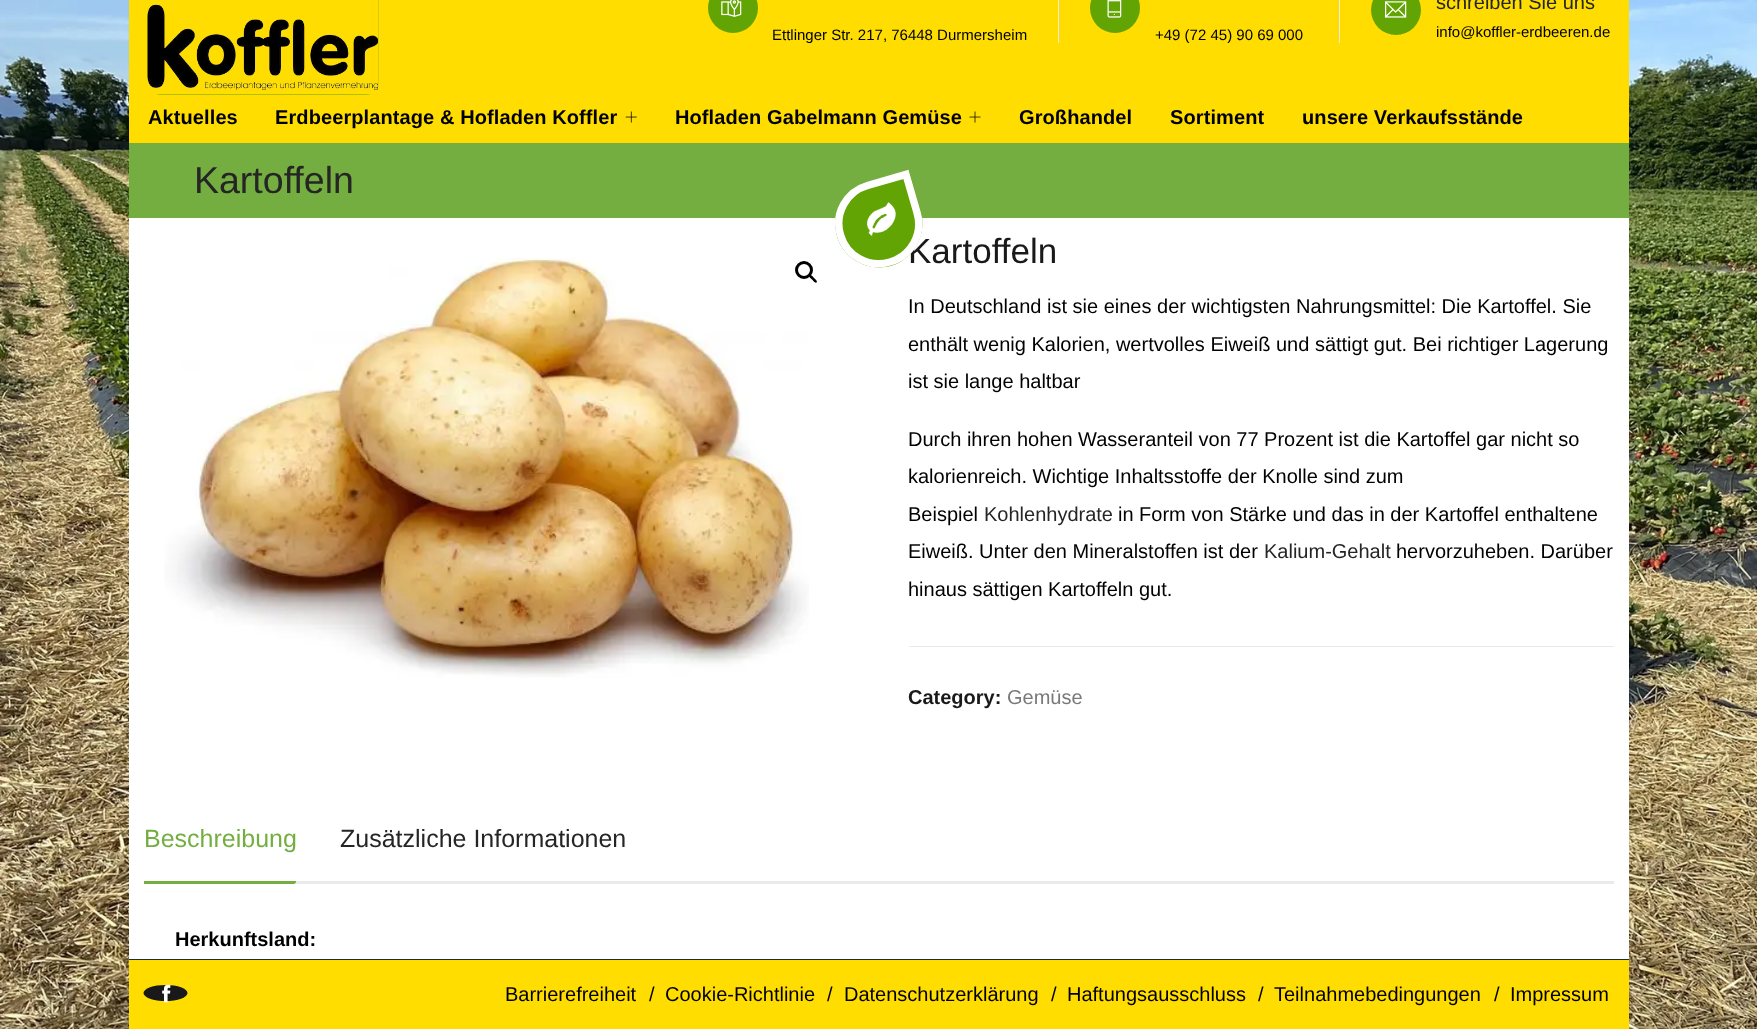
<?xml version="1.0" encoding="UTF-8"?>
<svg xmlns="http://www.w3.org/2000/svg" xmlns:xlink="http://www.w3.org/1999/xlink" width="1757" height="1029">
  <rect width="100%" height="100%" fill="#ffffff" />
  <image x="0" y="0" width="1757" height="1029" xlink:href="image1.png" />
  <rect x="129" width="1500" height="143" fill="#ffdd00" />
  <rect x="148" y="-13" width="231" height="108" rx="13" fill="#62a403" />
  <image x="147" y="0" width="232" height="95" xlink:href="image2.png" />
  <circle cx="733" cy="8" r="25" fill="#62a403" />
  <image x="721" y="0" width="21" height="17" xlink:href="image3.png" />
  <rect x="1058" width="1" height="43" fill="#eaeaea" />
  <circle cx="1115" cy="8" r="25" fill="#62a403" />
  <image x="1107" y="0" width="15" height="18" xlink:href="image4.png" />
  <rect x="1339" width="1" height="43" fill="#eaeaea" />
  <circle cx="1396" cy="10" r="25" fill="#62a403" />
  <image x="1385" y="1" width="22" height="17" xlink:href="image5.png" />
  <image x="625" y="111" width="12" height="12" xlink:href="image6.png" />
  <image x="969" y="111" width="12" height="12" xlink:href="image7.png" />
  <rect x="129" y="218" width="1500" height="741" fill="#ffffff" />
  <rect x="129" y="143" width="1500" height="75" fill="#74ae40" />
  <image x="164" y="258" width="645" height="420" xlink:href="image9.png" />
  <circle cx="804" cy="270" r="7.5" fill="none" stroke="#000000" stroke-width="3" />
  <path d="M 809.5 275 c 1.5 -1 3.5 2 4.5 3 c 0.5 0.5 4 3 2.5 4.5 c -1.5 1 -3.5 -2 -4.5 -3 c -0.5 -0.5 -4 -3 -2.5 -4.5 z" fill="#000000" />
  <rect x="909" y="646" width="705" height="1" fill="#eaeaea" />
  <rect x="293" y="881" width="1321" height="3" fill="#eaeaea" />
  <path d="M 144 881 h 152 v 0.5 c 0 1.5 -1 2.5 -2.5 2.5 h -149.5 z" fill="#74ae40" />
  <rect x="129" y="960" width="1500" height="69" fill="#ffdd00" />
  <rect x="129" y="959" width="1500" height="1" fill="#1e2c3c" />
  <ellipse cx="165.5" cy="993" rx="22" ry="8" fill="#191919" />
  <image x="162" y="984" width="9" height="19" xlink:href="image10.png" />
  <text x="772" y="40" style="font-family: Liberation Sans; font-size: 15px; fill: #000000">Ettlinger Str. 217, 76448 Durmersheim</text>
  <text x="1155" y="40" style="font-family: Liberation Sans; font-size: 15px; fill: #000000">+49 (72 45) 90 69 000</text>
  <text x="1436" y="9" style="font-family: Liberation Sans; font-size: 20px; fill: #252525">schreiben Sie uns</text>
  <text x="1436" y="37" style="font-family: Liberation Sans; font-size: 15px; fill: #000000">info@koffler-erdbeeren.de</text>
  <text x="148" y="124" style="font-family: Liberation Sans; font-size: 20px; font-weight: bold; letter-spacing: 0.1px; fill: #000000">Aktuelles</text>
  <text x="275" y="124" style="font-family: Liberation Sans; font-size: 20px; font-weight: bold; letter-spacing: 0.1px; fill: #000000">Erdbeerplantage &amp; Hofladen Koffler</text>
  <text x="675" y="124" style="font-family: Liberation Sans; font-size: 20px; font-weight: bold; letter-spacing: 0.1px; fill: #000000">Hofladen Gabelmann Gemüse</text>
  <text x="1019" y="124" style="font-family: Liberation Sans; font-size: 20px; font-weight: bold; letter-spacing: 0.1px; fill: #000000">Großhandel</text>
  <text x="1170" y="124" style="font-family: Liberation Sans; font-size: 20px; font-weight: bold; letter-spacing: 0.1px; fill: #000000">Sortiment</text>
  <text x="1302" y="124" style="font-family: Liberation Sans; font-size: 20px; font-weight: bold; letter-spacing: 0.1px; fill: #000000">unsere Verkaufsstände</text>
  <text x="194" y="193" style="font-family: Liberation Sans; font-size: 37.5px; fill: #252525">Kartoffeln</text>
  <text x="908" y="263" style="font-family: Liberation Sans; font-size: 35px; fill: #191919">Kartoffeln</text>
  <path d="M 909 170 l 12 42 c 6 23 -7 47 -30 54 c -23 6 -48 -7 -54 -30 c -7 -23 6 -48 30 -54 z" fill="#62a403" />
  <path d="M 906 174.5 l 11 38 c 6.5 21.5 -6 43.5 -27 49.5 c -21.5 6.5 -43.5 -6 -49.5 -27 c -6.5 -21.5 6 -43.5 27 -49.5 z" fill="none" stroke="#ffffff" stroke-width="7.5" />
  <image x="866" y="202" width="30" height="34" xlink:href="image8.png" />
  <text x="908" y="313" style="font-family: Liberation Sans; font-size: 20px; fill: #000000">In Deutschland ist sie eines der wichtigsten Nahrungsmittel: Die Kartoffel. Sie</text>
  <text x="908" y="351" style="font-family: Liberation Sans; font-size: 20px; fill: #000000">enthält wenig Kalorien, wertvolles Eiweiß und sättigt gut. Bei richtiger Lagerung</text>
  <text x="908" y="388" style="font-family: Liberation Sans; font-size: 20px; fill: #000000">ist sie lange haltbar</text>
  <text x="908" y="446" style="font-family: Liberation Sans; font-size: 20px; fill: #000000">Durch ihren hohen Wasseranteil von 77 Prozent ist die Kartoffel gar nicht so</text>
  <text x="908" y="483" style="font-family: Liberation Sans; font-size: 20px; fill: #000000">kalorienreich. Wichtige Inhaltsstoffe der Knolle sind zum</text>
  <text x="908" y="521" style="font-family: Liberation Sans; font-size: 20px; fill: #000000">Beispiel</text>
  <text x="984" y="521" style="font-family: Liberation Sans; font-size: 20px; fill: #252525">Kohlenhydrate</text>
  <text x="1118" y="521" style="font-family: Liberation Sans; font-size: 20px; fill: #000000">in Form von Stärke und das in der Kartoffel enthaltene</text>
  <text x="908" y="558" style="font-family: Liberation Sans; font-size: 20px; fill: #000000">Eiweiß. Unter den Mineralstoffen ist der</text>
  <text x="1264" y="558" style="font-family: Liberation Sans; font-size: 20px; fill: #252525">Kalium-Gehalt</text>
  <text x="1396" y="558" style="font-family: Liberation Sans; font-size: 20px; fill: #000000">hervorzuheben. Darüber</text>
  <text x="908" y="596" style="font-family: Liberation Sans; font-size: 20px; fill: #000000">hinaus sättigen Kartoffeln gut.</text>
  <text x="908" y="704" style="font-family: Liberation Sans; font-size: 20px; font-weight: bold; fill: #191919">Category:</text>
  <text x="1007" y="704" style="font-family: Liberation Sans; font-size: 20px; fill: #797979">Gemüse</text>
  <text x="144" y="847" style="font-family: Liberation Sans; font-size: 25px; fill: #74ae40">Beschreibung</text>
  <text x="340" y="847" style="font-family: Liberation Sans; font-size: 25px; fill: #252525">Zusätzliche Informationen</text>
  <text x="175" y="946" style="font-family: Liberation Sans; font-size: 20px; font-weight: bold; fill: #000000">Herkunftsland:</text>
  <text x="505" y="1001" style="font-family: Liberation Sans; font-size: 20px; fill: #000000">Barrierefreiheit</text>
  <text x="649" y="1001" style="font-family: Liberation Sans; font-size: 20px; fill: #000000">/</text>
  <text x="665" y="1001" style="font-family: Liberation Sans; font-size: 20px; fill: #000000">Cookie-Richtlinie</text>
  <text x="827" y="1001" style="font-family: Liberation Sans; font-size: 20px; fill: #000000">/</text>
  <text x="844" y="1001" style="font-family: Liberation Sans; font-size: 20px; fill: #000000">Datenschutzerklärung</text>
  <text x="1051" y="1001" style="font-family: Liberation Sans; font-size: 20px; fill: #000000">/</text>
  <text x="1067" y="1001" style="font-family: Liberation Sans; font-size: 20px; fill: #000000">Haftungsausschluss</text>
  <text x="1258" y="1001" style="font-family: Liberation Sans; font-size: 20px; fill: #000000">/</text>
  <text x="1274" y="1001" style="font-family: Liberation Sans; font-size: 20px; fill: #000000">Teilnahmebedingungen</text>
  <text x="1494" y="1001" style="font-family: Liberation Sans; font-size: 20px; fill: #000000">/</text>
  <text x="1510" y="1001" style="font-family: Liberation Sans; font-size: 20px; fill: #000000">Impressum</text>
</svg>
